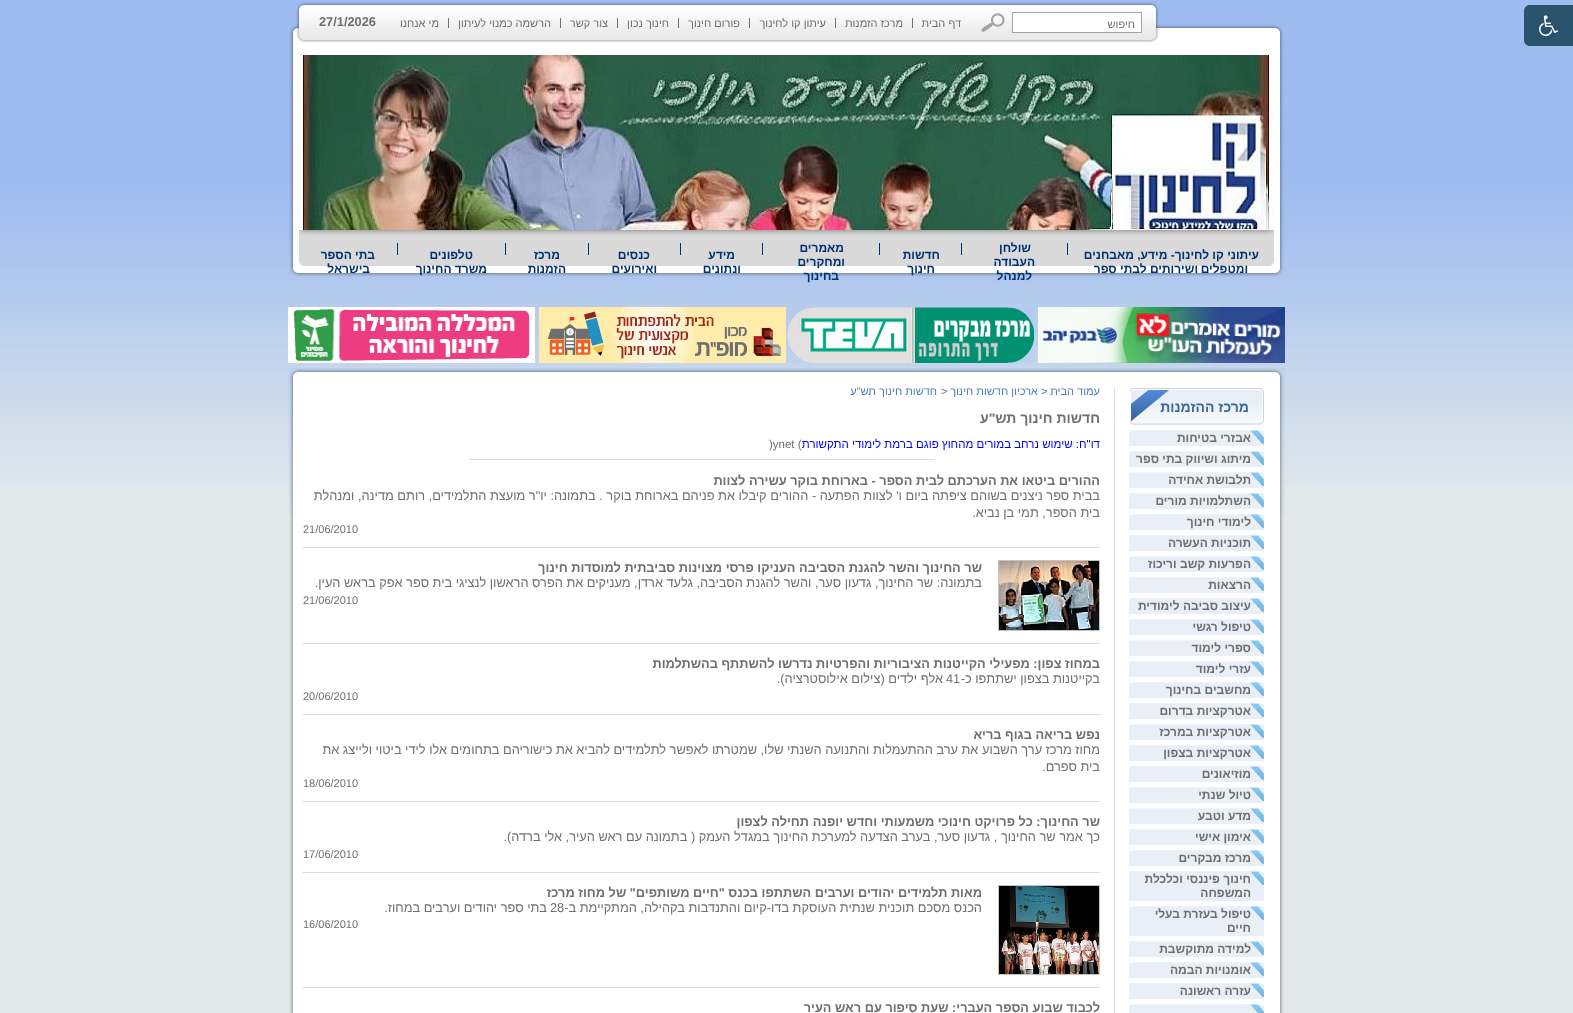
<?xml version="1.0" encoding="UTF-8"?>
<svg xmlns="http://www.w3.org/2000/svg" xmlns:xlink="http://www.w3.org/1999/xlink" width="1573" height="1013">
  <rect width="100%" height="100%" fill="#e2e9ea" />
  <image x="0" y="0" width="1573" height="487" xlink:href="image1.png" />
  <path d="M 1530 5 h 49 v 41 h -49 c -3.5 0 -6 -2.5 -6 -6 v -29 c 0 -3.5 2.5 -6 6 -6 z" fill="#29536c" />
  <image x="1539" y="15" width="19" height="21" xlink:href="image2.png" />
  <image x="289" y="24" width="995" height="253" xlink:href="image3.png" />
  <image x="304" y="2" width="847" height="41" xlink:href="image4.png" />
  <image x="1151" y="2" width="8" height="41" xlink:href="image5.png" />
  <rect x="1012.5" y="12.5" width="129" height="20" fill="#ffffff" stroke="#a4a3a3" />
  <image x="981" y="13" width="24" height="19" xlink:href="image6.png" />
  <rect x="912" y="18" width="1" height="10" fill="#727273" />
  <rect x="835" y="18" width="1" height="10" fill="#727273" />
  <rect x="749" y="18" width="1" height="10" fill="#727273" />
  <rect x="678" y="18" width="1" height="10" fill="#727273" />
  <rect x="617" y="18" width="1" height="10" fill="#727273" />
  <rect x="560" y="18" width="1" height="10" fill="#727273" />
  <rect x="448" y="18" width="1" height="10" fill="#727273" />
  <image x="288" y="2" width="16" height="41" xlink:href="image7.png" />
  <image x="299" y="55" width="975" height="175" xlink:href="image8.png" />
  <image x="299" y="230" width="975" height="36" xlink:href="image9.png" />
  <rect x="1067" y="243" width="1" height="12" fill="#003172" />
  <rect x="961" y="243" width="1" height="12" fill="#003172" />
  <rect x="879" y="243" width="1" height="12" fill="#003172" />
  <rect x="762" y="243" width="1" height="12" fill="#003172" />
  <rect x="680" y="243" width="1" height="12" fill="#003172" />
  <rect x="588" y="243" width="1" height="12" fill="#003172" />
  <rect x="505" y="243" width="1" height="12" fill="#003172" />
  <rect x="397" y="243" width="1" height="12" fill="#003172" />
  <image x="1038" y="307" width="247" height="56" xlink:href="image10.png" />
  <image x="787" y="307" width="247" height="56" xlink:href="image11.png" />
  <image x="539" y="307" width="247" height="56" xlink:href="image12.png" />
  <image x="288" y="307" width="247" height="56" xlink:href="image13.png" />
  <image x="288" y="515" width="997" height="498" xlink:href="image14.png" />
  <image x="288" y="368" width="997" height="147" xlink:href="image15.png" />
  <rect x="1114" y="388" width="1" height="625" fill="#dbdbdb" />
  <image x="1130" y="388" width="134" height="37" xlink:href="image16.png" />
  <image x="1129" y="430" width="135" height="16" xlink:href="image17.png" />
  <image x="1129" y="451" width="135" height="16" xlink:href="image17.png" />
  <image x="1129" y="472" width="135" height="16" xlink:href="image17.png" />
  <image x="1129" y="493" width="135" height="16" xlink:href="image17.png" />
  <image x="1129" y="514" width="135" height="16" xlink:href="image17.png" />
  <image x="1129" y="535" width="135" height="16" xlink:href="image17.png" />
  <image x="1129" y="556" width="135" height="16" xlink:href="image17.png" />
  <image x="1129" y="577" width="135" height="16" xlink:href="image17.png" />
  <image x="1129" y="598" width="135" height="16" xlink:href="image17.png" />
  <image x="1129" y="619" width="135" height="16" xlink:href="image17.png" />
  <image x="1129" y="640" width="135" height="16" xlink:href="image17.png" />
  <image x="1129" y="661" width="135" height="16" xlink:href="image17.png" />
  <image x="1129" y="682" width="135" height="16" xlink:href="image17.png" />
  <image x="1129" y="703" width="135" height="16" xlink:href="image17.png" />
  <image x="1129" y="724" width="135" height="16" xlink:href="image17.png" />
  <image x="1129" y="745" width="135" height="16" xlink:href="image17.png" />
  <image x="1129" y="766" width="135" height="16" xlink:href="image17.png" />
  <image x="1129" y="787" width="135" height="16" xlink:href="image17.png" />
  <image x="1129" y="808" width="135" height="16" xlink:href="image17.png" />
  <image x="1129" y="829" width="135" height="16" xlink:href="image17.png" />
  <image x="1129" y="850" width="135" height="16" xlink:href="image17.png" />
  <image x="1129" y="871" width="135" height="30" xlink:href="image18.png" />
  <image x="1129" y="906" width="135" height="30" xlink:href="image18.png" />
  <image x="1129" y="941" width="135" height="16" xlink:href="image17.png" />
  <image x="1129" y="962" width="135" height="16" xlink:href="image17.png" />
  <image x="1129" y="983" width="135" height="16" xlink:href="image17.png" />
  <image x="1129" y="1004" width="135" height="9" xlink:href="image19.png" />
  <rect x="469" y="459" width="466" height="1" fill="#dbdbdb" />
  <rect x="303" y="547" width="797" height="1" fill="#dbdbdb" />
  <rect x="998.5" y="560.5" width="101" height="70" fill="none" stroke="#c4c4c4" />
  <image x="999" y="561" width="100" height="69" xlink:href="image20.png" />
  <rect x="303" y="643" width="797" height="1" fill="#dbdbdb" />
  <rect x="303" y="714" width="797" height="1" fill="#dbdbdb" />
  <rect x="303" y="801" width="797" height="1" fill="#dbdbdb" />
  <rect x="303" y="872" width="797" height="1" fill="#dbdbdb" />
  <rect x="998.5" y="885.5" width="101" height="89" fill="none" stroke="#c4c4c4" />
  <image x="999" y="886" width="100" height="88" xlink:href="image21.png" />
  <rect x="303" y="987" width="797" height="1" fill="#dbdbdb" />
  <text x="1135" y="28" style="font-family: Liberation Sans; font-size: 11px; direction: rtl; fill: #6f6f6f">חיפוש</text>
  <text x="961" y="27" style="font-family: Liberation Sans; font-size: 11px; direction: rtl; fill: #6f6f6f">דף הבית</text>
  <text x="903" y="27" style="font-family: Liberation Sans; font-size: 11px; direction: rtl; fill: #6f6f6f">מרכז הזמנות</text>
  <text x="826" y="27" style="font-family: Liberation Sans; font-size: 11px; direction: rtl; fill: #6f6f6f">עיתון קו לחינוך</text>
  <text x="740" y="27" style="font-family: Liberation Sans; font-size: 11px; direction: rtl; fill: #6f6f6f">פורום חינוך</text>
  <text x="669" y="27" style="font-family: Liberation Sans; font-size: 11px; direction: rtl; fill: #6f6f6f">חינוך נכון</text>
  <text x="608" y="27" style="font-family: Liberation Sans; font-size: 11px; direction: rtl; fill: #6f6f6f">צור קשר</text>
  <text x="551" y="27" style="font-family: Liberation Sans; font-size: 11px; direction: rtl; fill: #6f6f6f">הרשמה כמנוי לעיתון</text>
  <text x="439" y="27" style="font-family: Liberation Sans; font-size: 11px; direction: rtl; fill: #6f6f6f">מי אנחנו</text>
  <text x="319" y="26" style="font-family: Liberation Sans; font-size: 12.8px; font-weight: bold; fill: #6f6f6f">27/1/2026</text>
  <text x="1259" y="259" style="font-family: Liberation Sans; font-size: 12px; font-weight: bold; direction: rtl; fill: #003172">עיתוני קו לחינוך- מידע, מאבחנים</text>
  <text x="1248" y="273" style="font-family: Liberation Sans; font-size: 12px; font-weight: bold; direction: rtl; fill: #003172">ומטפלים</text>
  <text x="1198" y="273" style="font-family: Liberation Sans; font-size: 12px; font-weight: bold; direction: rtl; fill: #003172">ושירותים לבתי ספר</text>
  <text x="1031" y="252" style="font-family: Liberation Sans; font-size: 12px; font-weight: bold; direction: rtl; fill: #003172">שולחן</text>
  <text x="1035" y="266" style="font-family: Liberation Sans; font-size: 12px; font-weight: bold; direction: rtl; fill: #003172">העבודה</text>
  <text x="1032" y="280" style="font-family: Liberation Sans; font-size: 12px; font-weight: bold; direction: rtl; fill: #003172">למנהל</text>
  <text x="940" y="259" style="font-family: Liberation Sans; font-size: 12px; font-weight: bold; direction: rtl; fill: #003172">חדשות</text>
  <text x="935" y="273" style="font-family: Liberation Sans; font-size: 12px; font-weight: bold; direction: rtl; fill: #003172">חינוך</text>
  <text x="844" y="252" style="font-family: Liberation Sans; font-size: 12px; font-weight: bold; direction: rtl; fill: #003172">מאמרים</text>
  <text x="845" y="266" style="font-family: Liberation Sans; font-size: 12px; font-weight: bold; direction: rtl; fill: #003172">ומחקרים</text>
  <text x="839" y="280" style="font-family: Liberation Sans; font-size: 12px; font-weight: bold; direction: rtl; fill: #003172">בחינוך</text>
  <text x="735" y="259" style="font-family: Liberation Sans; font-size: 12px; font-weight: bold; direction: rtl; fill: #003172">מידע</text>
  <text x="741" y="273" style="font-family: Liberation Sans; font-size: 12px; font-weight: bold; direction: rtl; fill: #003172">ונתונים</text>
  <text x="650" y="259" style="font-family: Liberation Sans; font-size: 12px; font-weight: bold; direction: rtl; fill: #003172">כנסים</text>
  <text x="657" y="273" style="font-family: Liberation Sans; font-size: 12px; font-weight: bold; direction: rtl; fill: #003172">ואירועים</text>
  <text x="560" y="259" style="font-family: Liberation Sans; font-size: 12px; font-weight: bold; direction: rtl; fill: #003172">מרכז</text>
  <text x="566" y="273" style="font-family: Liberation Sans; font-size: 12px; font-weight: bold; direction: rtl; fill: #003172">הזמנות</text>
  <text x="473" y="259" style="font-family: Liberation Sans; font-size: 12px; font-weight: bold; direction: rtl; fill: #003172">טלפונים</text>
  <text x="487" y="273" style="font-family: Liberation Sans; font-size: 12px; font-weight: bold; direction: rtl; fill: #003172">משרד החינוך</text>
  <text x="375" y="259" style="font-family: Liberation Sans; font-size: 12px; font-weight: bold; direction: rtl; fill: #003172">בתי הספר</text>
  <text x="370" y="273" style="font-family: Liberation Sans; font-size: 12px; font-weight: bold; direction: rtl; fill: #003172">בישראל</text>
  <text x="1249" y="412" style="font-family: Liberation Sans; font-size: 14px; font-weight: bold; direction: rtl; fill: #3d6599">מרכז ההזמנות</text>
  <text x="1251" y="442" style="font-family: Liberation Sans; font-size: 12px; font-weight: bold; direction: rtl; fill: #6f6f6f">אבזרי בטיחות</text>
  <text x="1251" y="463" style="font-family: Liberation Sans; font-size: 12px; font-weight: bold; direction: rtl; fill: #6f6f6f">מיתוג ושיווק בתי ספר</text>
  <text x="1251" y="484" style="font-family: Liberation Sans; font-size: 12px; font-weight: bold; direction: rtl; fill: #6f6f6f">תלבושת אחידה</text>
  <text x="1251" y="505" style="font-family: Liberation Sans; font-size: 12px; font-weight: bold; direction: rtl; fill: #6f6f6f">השתלמויות מורים</text>
  <text x="1251" y="526" style="font-family: Liberation Sans; font-size: 12px; font-weight: bold; direction: rtl; fill: #6f6f6f">לימודי חינוך</text>
  <text x="1251" y="547" style="font-family: Liberation Sans; font-size: 12px; font-weight: bold; direction: rtl; fill: #6f6f6f">תוכניות העשרה</text>
  <text x="1251" y="568" style="font-family: Liberation Sans; font-size: 12px; font-weight: bold; direction: rtl; fill: #6f6f6f">הפרעות קשב וריכוז</text>
  <text x="1251" y="589" style="font-family: Liberation Sans; font-size: 12px; font-weight: bold; direction: rtl; fill: #6f6f6f">הרצאות</text>
  <text x="1251" y="610" style="font-family: Liberation Sans; font-size: 12px; font-weight: bold; direction: rtl; fill: #6f6f6f">עיצוב סביבה לימודית</text>
  <text x="1251" y="631" style="font-family: Liberation Sans; font-size: 12px; font-weight: bold; direction: rtl; fill: #6f6f6f">טיפול רגשי</text>
  <text x="1251" y="652" style="font-family: Liberation Sans; font-size: 12px; font-weight: bold; direction: rtl; fill: #6f6f6f">ספרי לימוד</text>
  <text x="1251" y="673" style="font-family: Liberation Sans; font-size: 12px; font-weight: bold; direction: rtl; fill: #6f6f6f">עזרי לימוד</text>
  <text x="1251" y="694" style="font-family: Liberation Sans; font-size: 12px; font-weight: bold; direction: rtl; fill: #6f6f6f">מחשבים בחינוך</text>
  <text x="1251" y="715" style="font-family: Liberation Sans; font-size: 12px; font-weight: bold; direction: rtl; fill: #6f6f6f">אטרקציות בדרום</text>
  <text x="1251" y="736" style="font-family: Liberation Sans; font-size: 12px; font-weight: bold; direction: rtl; fill: #6f6f6f">אטרקציות במרכז</text>
  <text x="1251" y="757" style="font-family: Liberation Sans; font-size: 12px; font-weight: bold; direction: rtl; fill: #6f6f6f">אטרקציות בצפון</text>
  <text x="1251" y="778" style="font-family: Liberation Sans; font-size: 12px; font-weight: bold; direction: rtl; fill: #6f6f6f">מוזיאונים</text>
  <text x="1251" y="799" style="font-family: Liberation Sans; font-size: 12px; font-weight: bold; direction: rtl; fill: #6f6f6f">טיול שנתי</text>
  <text x="1251" y="820" style="font-family: Liberation Sans; font-size: 12px; font-weight: bold; direction: rtl; fill: #6f6f6f">מדע וטבע</text>
  <text x="1251" y="841" style="font-family: Liberation Sans; font-size: 12px; font-weight: bold; direction: rtl; fill: #6f6f6f">אימון אישי</text>
  <text x="1251" y="862" style="font-family: Liberation Sans; font-size: 12px; font-weight: bold; direction: rtl; fill: #6f6f6f">מרכז מבקרים</text>
  <text x="1251" y="883" style="font-family: Liberation Sans; font-size: 12px; font-weight: bold; direction: rtl; fill: #6f6f6f">חינוך פיננסי וכלכלת</text>
  <text x="1251" y="897" style="font-family: Liberation Sans; font-size: 12px; font-weight: bold; direction: rtl; fill: #6f6f6f">המשפחה</text>
  <text x="1251" y="918" style="font-family: Liberation Sans; font-size: 12px; font-weight: bold; direction: rtl; fill: #6f6f6f">טיפול בעזרת בעלי</text>
  <text x="1251" y="932" style="font-family: Liberation Sans; font-size: 12px; font-weight: bold; direction: rtl; fill: #6f6f6f">חיים</text>
  <text x="1251" y="953" style="font-family: Liberation Sans; font-size: 12px; font-weight: bold; direction: rtl; fill: #6f6f6f">למידה מתוקשבת</text>
  <text x="1251" y="974" style="font-family: Liberation Sans; font-size: 12px; font-weight: bold; direction: rtl; fill: #6f6f6f">אומנויות הבמה</text>
  <text x="1251" y="995" style="font-family: Liberation Sans; font-size: 12px; font-weight: bold; direction: rtl; fill: #6f6f6f">עזרה ראשונה</text>
  <text x="1100" y="395" style="font-family: Liberation Sans; font-size: 11px; direction: rtl; fill: #497cc0">עמוד הבית</text>
  <text x="1041" y="395" style="font-family: Liberation Sans; font-size: 11px; fill: #497cc0">&gt;</text>
  <text x="1038" y="395" style="font-family: Liberation Sans; font-size: 11px; direction: rtl; fill: #497cc0">ארכיון חדשות חינוך</text>
  <text x="941" y="395" style="font-family: Liberation Sans; font-size: 11px; fill: #497cc0">&gt;</text>
  <text x="937" y="395" style="font-family: Liberation Sans; font-size: 11px; direction: rtl; fill: #497cc0">חדשות חינוך תש"ע</text>
  <text x="1100" y="423" style="font-family: Liberation Sans; font-size: 14px; font-weight: bold; direction: rtl; fill: #6f6f6f">חדשות חינוך תש"ע</text>
  <text x="1100" y="448" style="font-family: Liberation Sans; font-size: 11.5px; direction: rtl; fill: #0000ff">דו"ח: שימוש נרחב במורים מהחוץ פוגם ברמת לימודי התקשורת</text>
  <text x="769" y="448" style="font-family: Liberation Sans; font-size: 11.5px; fill: #6f6f6f">)ynet (</text>
  <text x="1100" y="485" style="font-family: Liberation Sans; font-size: 12.8px; font-weight: bold; direction: rtl; fill: #6f6f6f">ההורים ביטאו את הערכתם לבית הספר - בארוחת בוקר עשירה לצוות</text>
  <text x="1100" y="500" style="font-family: Liberation Sans; font-size: 12.8px; direction: rtl; fill: #6f6f6f">בבית ספר ניצנים בשוהם ציפתה ביום ו' לצוות הפתעה - ההורים קיבלו את פניהם בארוחת בוקר . בתמונה: יו"ר מועצת התלמידים, רותם מדינה, ומנהלת</text>
  <text x="1100" y="517" style="font-family: Liberation Sans; font-size: 12.8px; direction: rtl; fill: #6f6f6f">בית הספר, תמי בן נביא.</text>
  <text x="303" y="533" style="font-family: Liberation Sans; font-size: 11px; fill: #6f6f6f">21/06/2010</text>
  <text x="982" y="572" style="font-family: Liberation Sans; font-size: 12.8px; font-weight: bold; direction: rtl; fill: #6f6f6f">שר החינוך והשר להגנת הסביבה העניקו פרסי מצוינות סביבתית למוסדות חינוך</text>
  <text x="982" y="587" style="font-family: Liberation Sans; font-size: 12.8px; direction: rtl; fill: #6f6f6f">בתמונה: שר החינוך, גדעון סער, והשר להגנת הסביבה, גלעד ארדן, מעניקים את הפרס הראשון לנציגי בית ספר אפק בראש העין.</text>
  <text x="303" y="604" style="font-family: Liberation Sans; font-size: 11px; fill: #6f6f6f">21/06/2010</text>
  <text x="1100" y="668" style="font-family: Liberation Sans; font-size: 12.8px; font-weight: bold; direction: rtl; fill: #6f6f6f">במחוז צפון: מפעילי הקייטנות הציבוריות והפרטיות נדרשו להשתתף בהשתלמות</text>
  <text x="1100" y="683" style="font-family: Liberation Sans; font-size: 12.8px; direction: rtl; fill: #6f6f6f">בקייטנות בצפון ישתתפו כ-</text>
  <text x="946" y="683" style="font-family: Liberation Sans; font-size: 12.8px; fill: #6f6f6f">41</text>
  <text x="943" y="683" style="font-family: Liberation Sans; font-size: 12.8px; direction: rtl; fill: #6f6f6f">אלף ילדים (צילום אילוסטרציה).</text>
  <text x="303" y="700" style="font-family: Liberation Sans; font-size: 11px; fill: #6f6f6f">20/06/2010</text>
  <text x="1100" y="739" style="font-family: Liberation Sans; font-size: 12.8px; font-weight: bold; direction: rtl; fill: #6f6f6f">נפש בריאה בגוף בריא</text>
  <text x="1100" y="754" style="font-family: Liberation Sans; font-size: 12.8px; direction: rtl; fill: #6f6f6f">מחוז מרכז ערך השבוע את ערב ההתעמלות והתנועה השנתי שלו, שמטרתו לאפשר לתלמידים</text>
  <text x="610" y="754" style="font-family: Liberation Sans; font-size: 12.8px; direction: rtl; fill: #6f6f6f">להביא את כישוריהם בתחומים אלו לידי ביטוי ולייצג את</text>
  <text x="1100" y="771" style="font-family: Liberation Sans; font-size: 12.8px; direction: rtl; fill: #6f6f6f">בית ספרם.</text>
  <text x="303" y="787" style="font-family: Liberation Sans; font-size: 11px; fill: #6f6f6f">18/06/2010</text>
  <text x="1100" y="826" style="font-family: Liberation Sans; font-size: 12.8px; font-weight: bold; direction: rtl; fill: #6f6f6f">שר החינוך: כל פרויקט חינוכי משמעותי וחדש יופנה</text>
  <text x="809" y="826" style="font-family: Liberation Sans; font-size: 12.8px; font-weight: bold; direction: rtl; fill: #6f6f6f">תחילה לצפון</text>
  <text x="1100" y="841" style="font-family: Liberation Sans; font-size: 12.8px; direction: rtl; fill: #6f6f6f">כך אמר שר החינוך , גדעון סער, בערב הצדעה למערכת החינוך במגדל העמק ( בתמונה עם ראש העיר, אלי ברדה).</text>
  <text x="303" y="858" style="font-family: Liberation Sans; font-size: 11px; fill: #6f6f6f">17/06/2010</text>
  <text x="982" y="897" style="font-family: Liberation Sans; font-size: 12.8px; font-weight: bold; direction: rtl; fill: #6f6f6f">מאות תלמידים יהודים וערבים השתתפו בכנס "חיים משותפים" של מחוז מרכז</text>
  <text x="982" y="912" style="font-family: Liberation Sans; font-size: 12.8px; direction: rtl; fill: #6f6f6f">הכנס מסכם תוכנית שנתית העוסקת בדו-קיום והתנדבות בקהילה, המתקיימת ב-</text>
  <text x="550" y="912" style="font-family: Liberation Sans; font-size: 12.8px; fill: #6f6f6f">28</text>
  <text x="547" y="912" style="font-family: Liberation Sans; font-size: 12.8px; direction: rtl; fill: #6f6f6f">בתי ספר יהודים וערבים במחוז.</text>
  <text x="303" y="928" style="font-family: Liberation Sans; font-size: 11px; fill: #6f6f6f">16/06/2010</text>
  <text x="1100" y="1012" style="font-family: Liberation Sans; font-size: 12.8px; font-weight: bold; direction: rtl; fill: #6f6f6f">לכבוד שבוע הספר העברי: שעת סיפור עם ראש העיר</text>
</svg>
